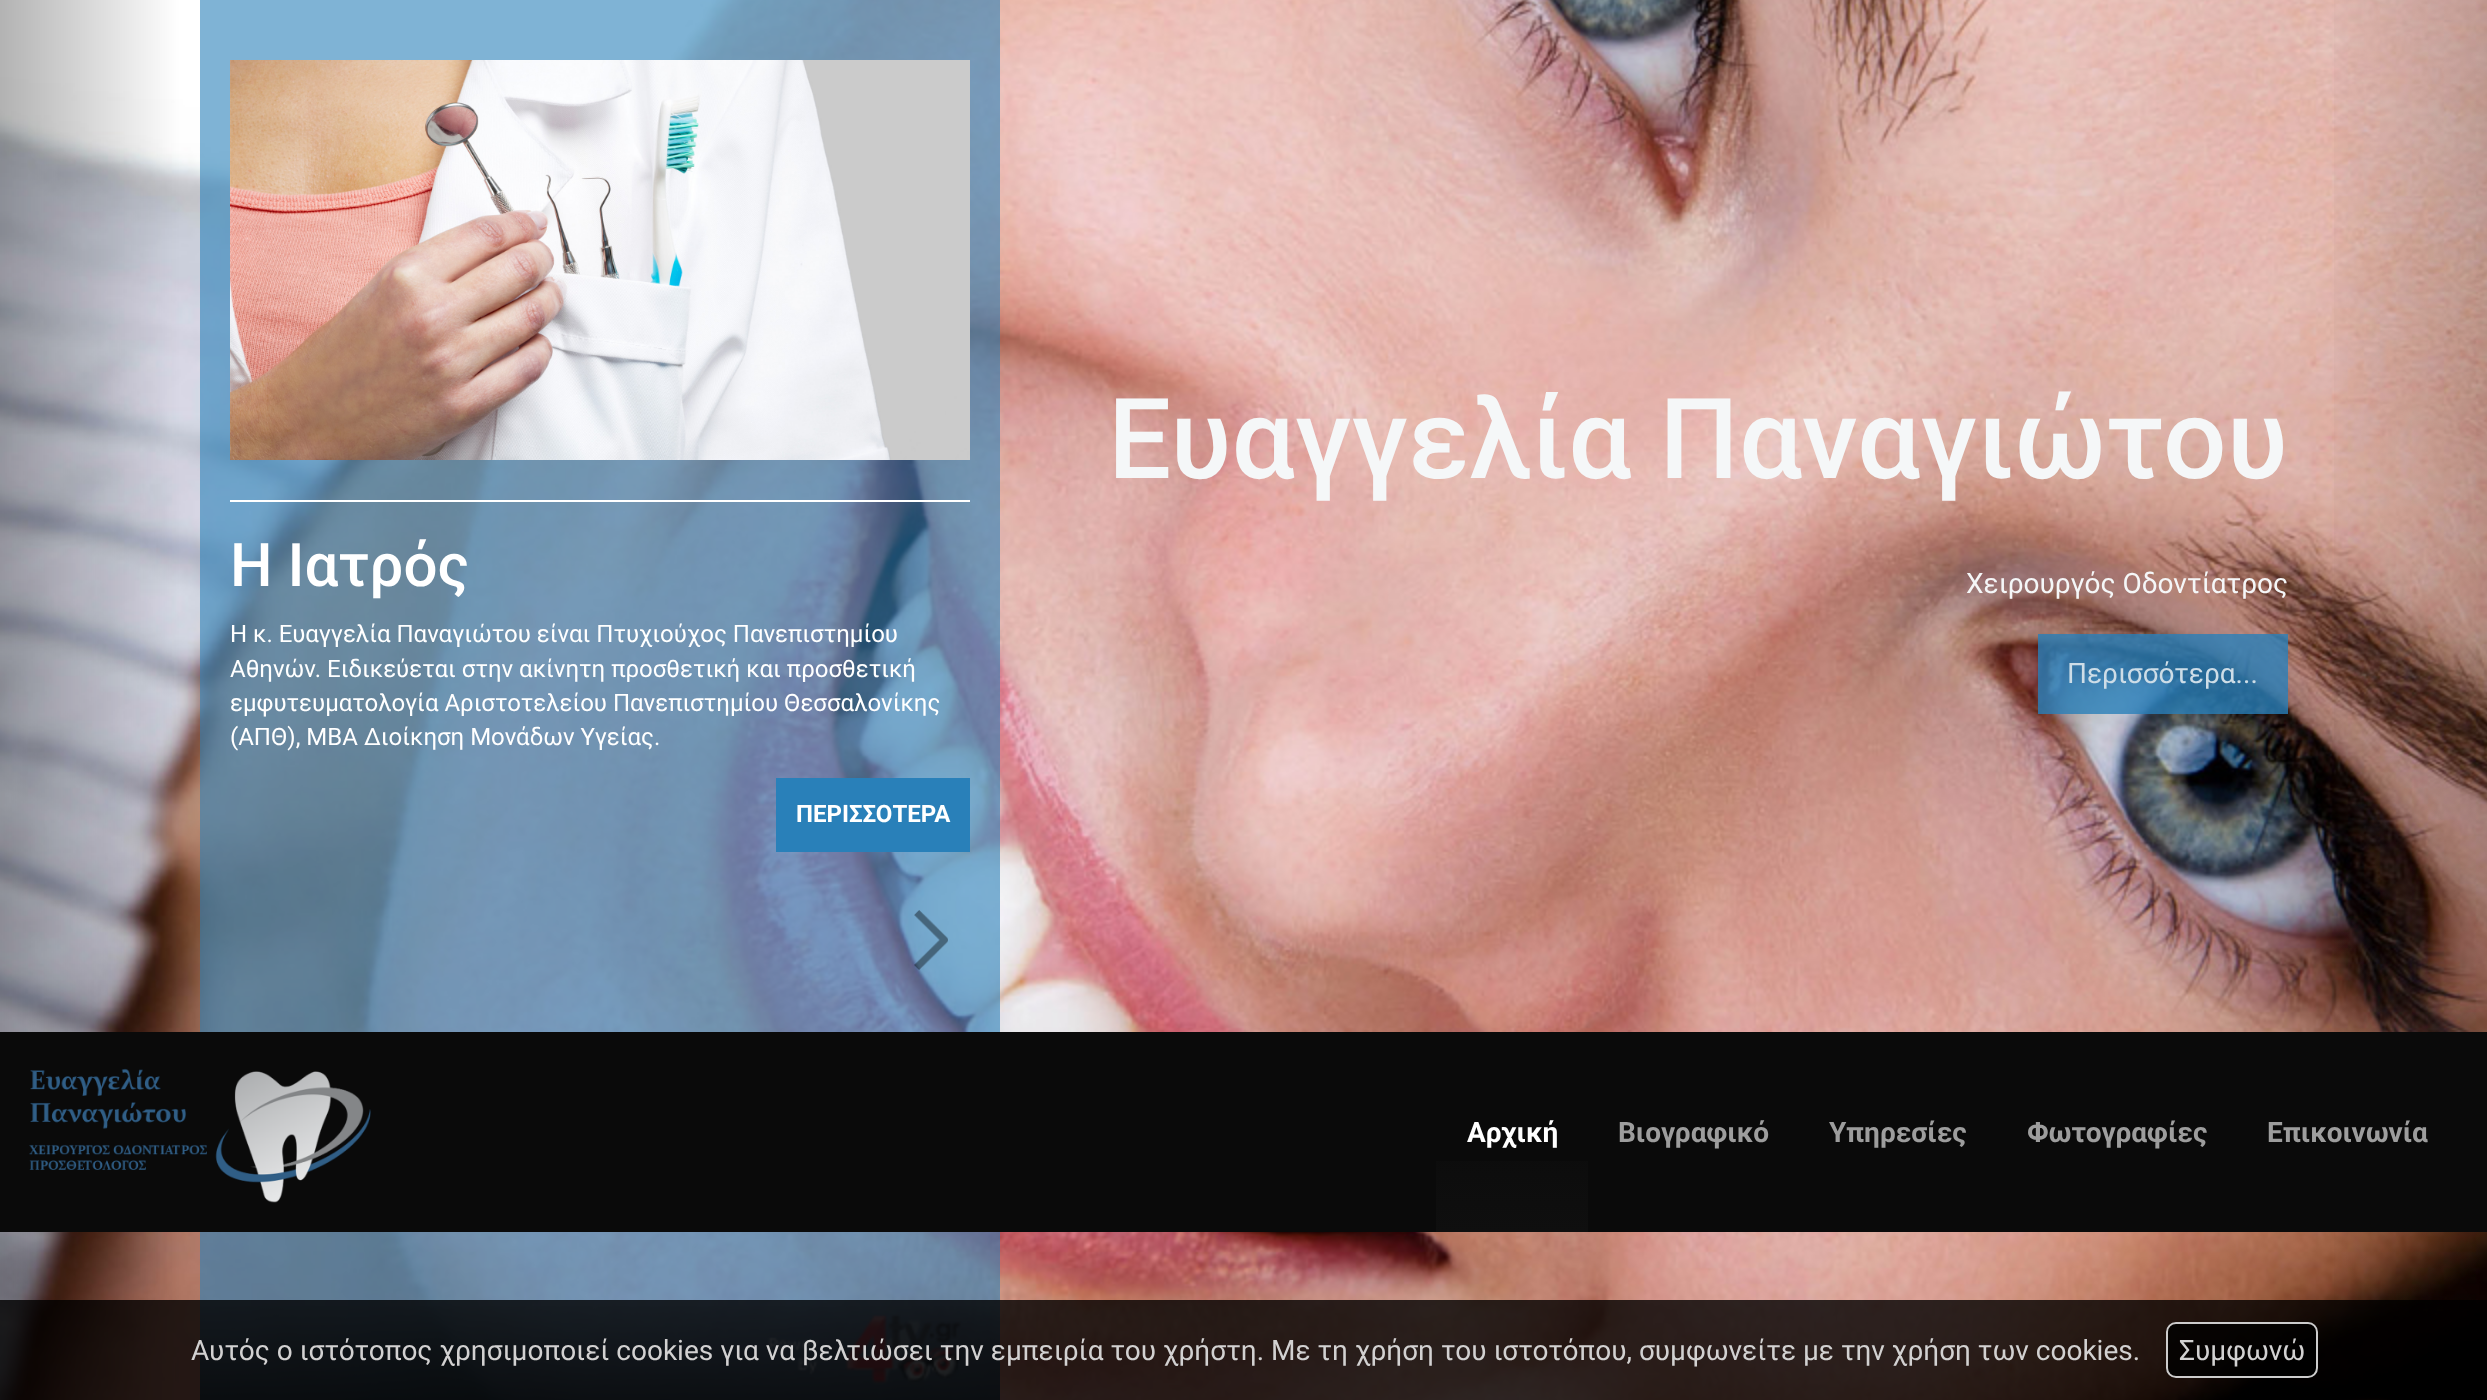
<?xml version="1.0" encoding="UTF-8"?>
<svg xmlns="http://www.w3.org/2000/svg" xmlns:xlink="http://www.w3.org/1999/xlink" width="2487" height="1400">
  <defs>
    <linearGradient id="g1" gradientUnits="userSpaceOnUse" x1="2288" y1="700" x2="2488" y2="700"><stop offset="0.1" stop-color="#010101" stop-opacity="0" /><stop offset="1" stop-color="#010101" stop-opacity="0.15" /></linearGradient>
    <linearGradient id="g2" gradientUnits="userSpaceOnUse" x1="1512" y1="1032" x2="1512" y2="1232"><stop offset="0" stop-color="#080808" /><stop offset="1" stop-color="#0f0f0f" /></linearGradient>
    <linearGradient id="g3" gradientUnits="userSpaceOnUse" x1="600" y1="1302" x2="600" y2="1400"><stop offset="0" stop-color="#000000" stop-opacity="0" /><stop offset="1" stop-color="#000000" stop-opacity="0.47" /></linearGradient>
  </defs>
  <rect width="100%" height="100%" fill="#ffffff" />
  <image x="0" y="0" width="2487" height="1400" xlink:href="image3.png" />
  <rect x="200" width="800" height="1400" fill="#2980b9" fill-opacity="0.6" />
  <image x="230" y="60" width="740" height="400" xlink:href="image1.png" />
  <rect x="230" y="500" width="740" height="2" fill="#ffffff" />
  <rect x="776" y="778" width="194" height="74" fill="#2980b9" />
  <image x="914" y="910" width="34" height="60" xlink:href="image2.png" />
  <rect x="2038" y="634" width="250" height="80" fill="#2980b9" fill-opacity="0.8" />
  <rect x="2334" width="153" height="1309" fill="url(#g1)" />
  <rect y="1032" width="2487" height="200" fill="#0a0a0a" />
  <image x="29" y="1068" width="342" height="135" xlink:href="image4.png" />
  <rect x="1436" y="1161" width="152" height="71" fill="url(#g2)" />
  <rect x="200" y="1306" width="800" height="94" fill="url(#g3)" />
  <image x="767" y="1314" width="194" height="71" xlink:href="image5.png" />
  <rect y="1300" width="2487" height="100" fill="#000000" fill-opacity="0.8" />
  <rect x="2166" y="1322" width="152" height="56" rx="10" fill="#000000" fill-opacity="0.8" />
  <rect x="2167" y="1323" width="150" height="54" rx="9" fill="none" stroke="#ffffff" stroke-opacity="0.8" stroke-width="2" />
  <text x="230" y="586" style="font-family: Roboto; font-size: 60px; font-weight: 500; fill: #ffffff">Η Ιατρός</text>
  <text x="230" y="642" style="font-family: Roboto; font-size: 24px; fill: #ffffff">Η κ. Ευαγγελία Παναγιώτου είναι Πτυχιούχος Πανεπιστημίου</text>
  <text x="230" y="677" style="font-family: Roboto; font-size: 24px; fill: #ffffff">Αθηνών. Ειδικεύεται στην ακίνητη προσθετική και προσθετική</text>
  <text x="230" y="711" style="font-family: Roboto; font-size: 24px; fill: #ffffff">εμφυτευματολογία Αριστοτελείου Πανεπιστημίου Θεσσαλονίκης</text>
  <text x="230" y="745" style="font-family: Roboto; font-size: 24px; fill: #ffffff">(ΑΠΘ), MBA Διοίκηση Μονάδων Υγείας.</text>
  <text x="796" y="822" style="font-family: Roboto; font-size: 24px; font-weight: bold; fill: #ffffff">ΠΕΡΙΣΣΟΤΕΡΑ</text>
  <text x="1108" y="478" style="font-family: Roboto; font-size: 112px; font-weight: 500; fill: #f5f7f8">Ευαγγελία Παναγιώτου</text>
  <text x="1966" y="593" style="font-family: Roboto; font-size: 28px; fill: #f5f7f8">Χειρουργός Οδοντίατρος</text>
  <text x="2067" y="683" style="font-family: Roboto; font-size: 28px; fill: #cedde7">Περισσότερα...</text>
  <text x="1467" y="1142" style="font-family: Roboto; font-size: 28px; font-weight: bold; fill: #ffffff">Αρχική</text>
  <text x="1618" y="1142" style="font-family: Roboto; font-size: 28px; font-weight: bold; fill: #9d9d9d">Βιογραφικό</text>
  <text x="1829" y="1142" style="font-family: Roboto; font-size: 28px; font-weight: bold; fill: #9d9d9d">Υπηρεσίες</text>
  <text x="2027" y="1142" style="font-family: Roboto; font-size: 28px; font-weight: bold; fill: #9d9d9d">Φωτογραφίες</text>
  <text x="2267" y="1142" style="font-family: Roboto; font-size: 28px; font-weight: bold; fill: #9d9d9d">Επικοινωνία</text>
  <text x="191" y="1360" style="font-family: Roboto; font-size: 28px; fill: #d2d1d1">Αυτός ο ιστότοπος χρησιμοποιεί cookies για να βελτιώσει την εμπειρία του χρήστη. Με τη χρήση του ιστοτόπου, συμφωνείτε με την χρήση των cookies.</text>
  <text x="2179" y="1360" style="font-family: Roboto; font-size: 28px; fill: #d2d1d1">Συμφωνώ</text>
</svg>
